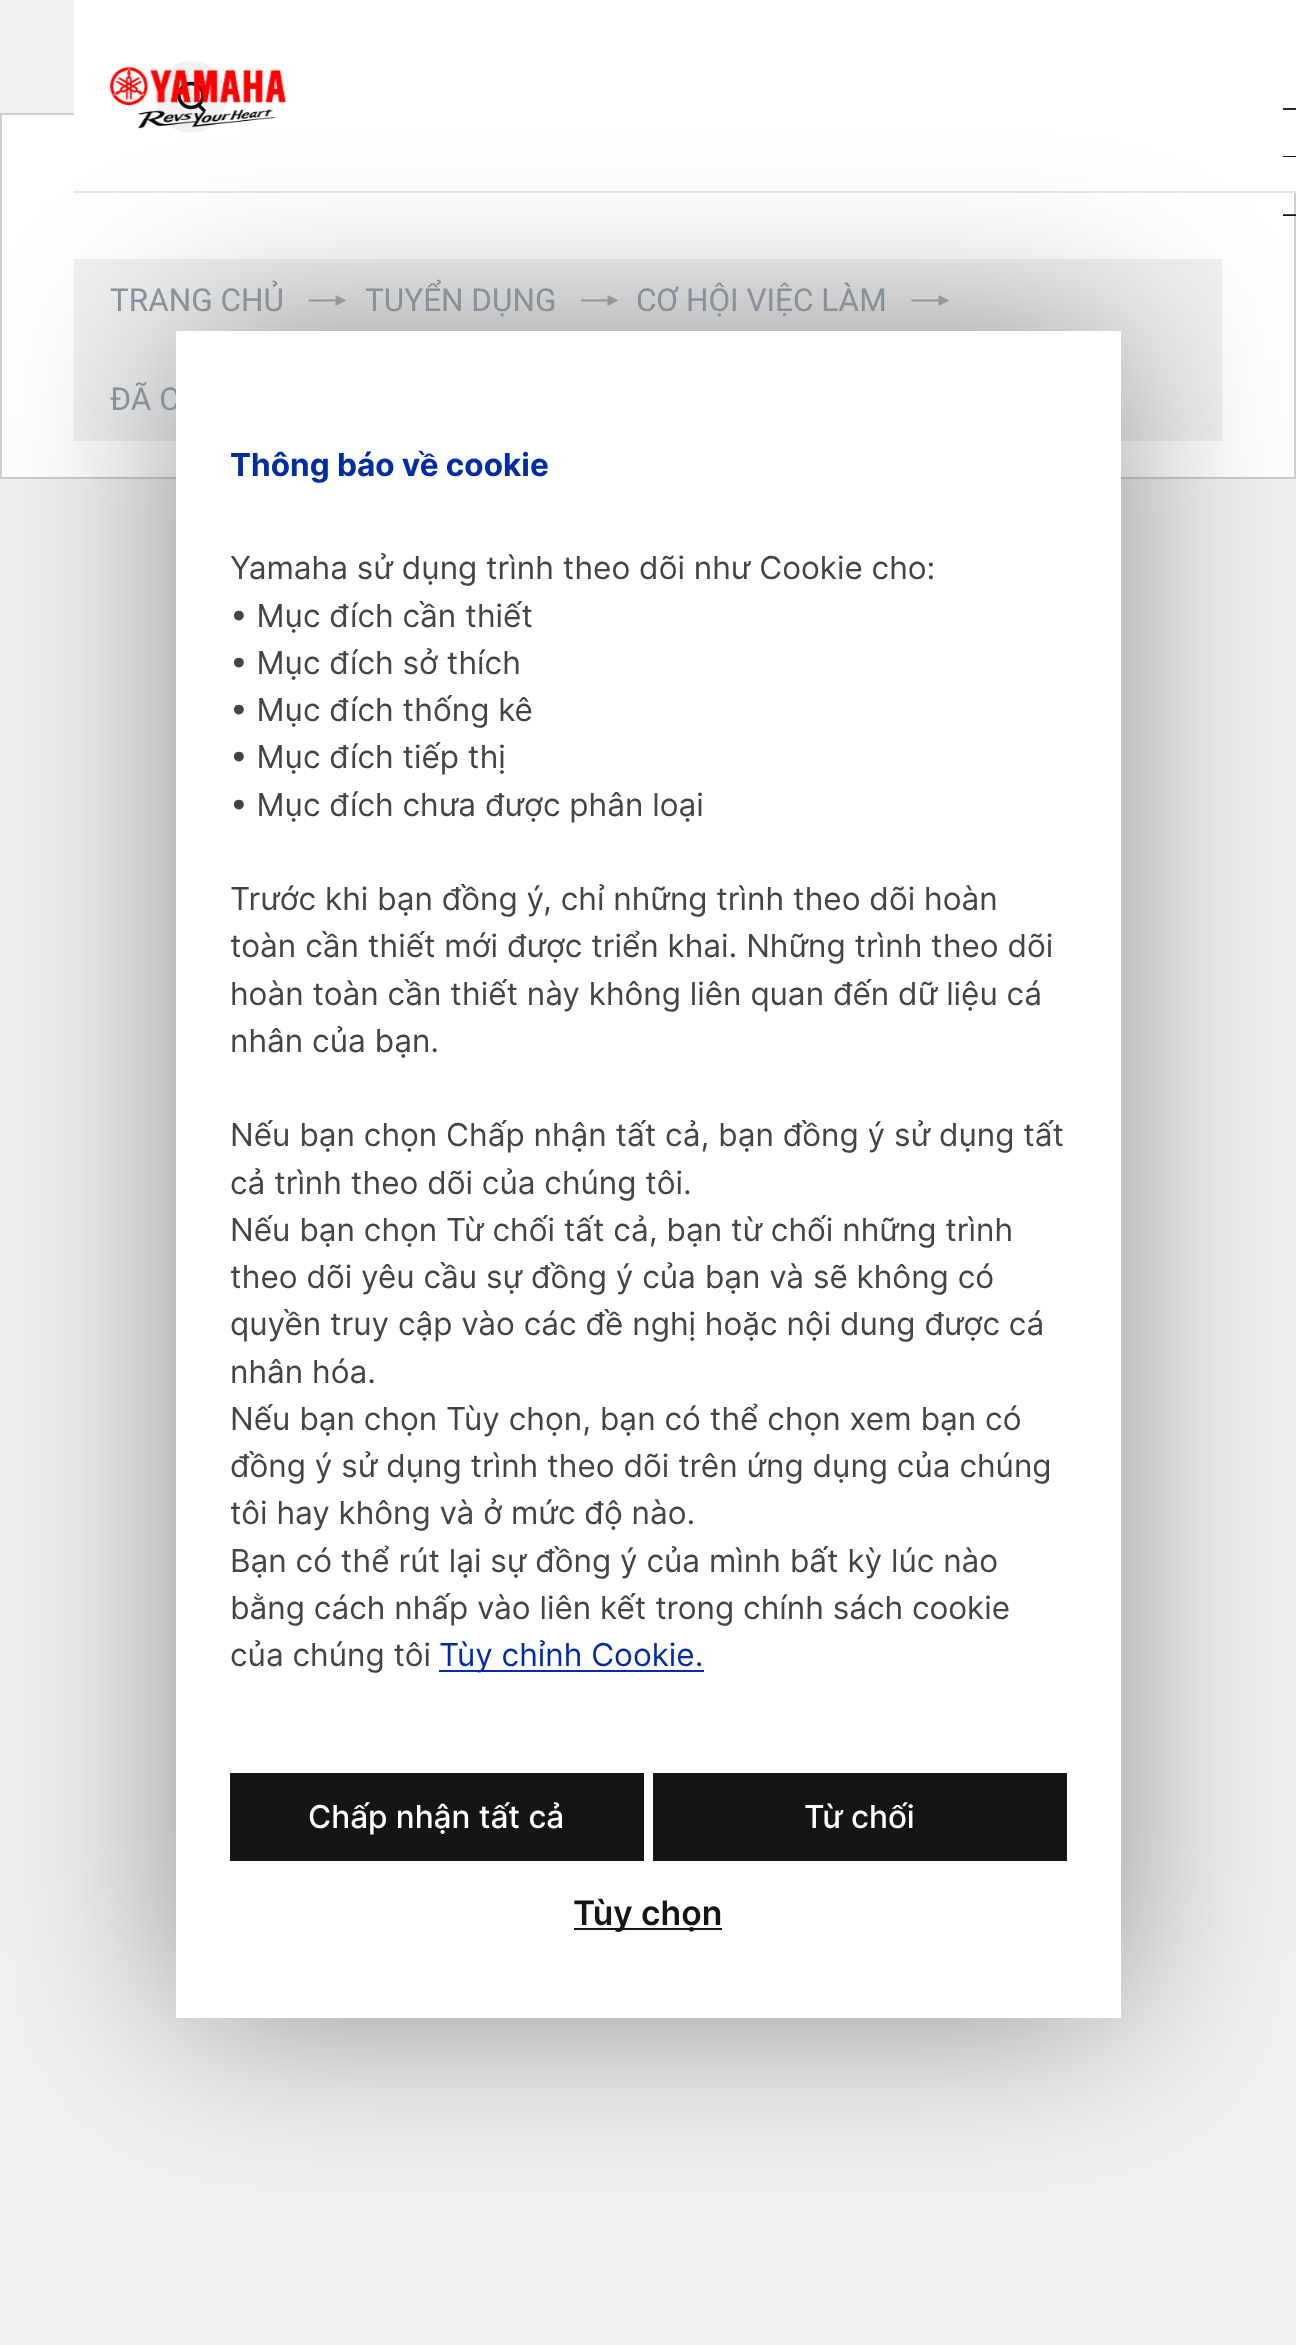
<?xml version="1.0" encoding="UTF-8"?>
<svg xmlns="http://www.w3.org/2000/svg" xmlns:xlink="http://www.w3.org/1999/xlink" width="1296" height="2345">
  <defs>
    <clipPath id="clip1"><rect x="1283" y="214" width="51" height="2" /></clipPath>
    <clipPath id="clip2"><rect x="581" y="295" width="38" height="11" /></clipPath>
  </defs>
  <rect width="100%" height="100%" fill="#f1f1f1" />
  <rect x="1" y="114" width="1294" height="364" fill="#ffffff" stroke="#ccd0d4" stroke-width="2" />
  <rect x="74" y="191" width="1222" height="2" fill="#e6e6e6" />
  <rect x="74" width="1222" height="191" fill="#ffffff" />
  <circle cx="191" cy="97" r="36" fill="#f0f1f2" />
  <circle cx="191" cy="95.5" r="12" fill="none" stroke="#151515" stroke-width="3.4" />
  <path d="M 198.5 105 l 6.5 6.5" fill="none" stroke="#151515" stroke-width="3.4" />
  <image x="110" y="67" width="177" height="62" xlink:href="image1.png" />
  <rect x="1283" y="108" width="13" height="2" fill="#272727" />
  <rect x="1283" y="156" width="13" height="1" fill="#151515" />
  <g clip-path="url(#clip1)">
    <path d="M 1280 216 h 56.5" fill="none" stroke="#151515" stroke-width="3.4" />
  </g>
  <rect x="74" y="259" width="1148" height="182" fill="#f0f1f2" />
  <path d="M 335.5 301.5 h -27 v -2 h 27 v -4.5 l 11 5.5 l -11 5.5 z" fill="#b2b2b2" />
  <g clip-path="url(#clip2)">
    <path d="M 607.5 301.5 h -27 v -2 h 27 v -4.5 l 11 5.5 l -11 5.5 z" fill="#b2b2b2" />
  </g>
  <path d="M 938.5 301.5 h -27 v -2 h 27 v -4.5 l 11 5.5 l -11 5.5 z" fill="#b2b2b2" />
  <rect x="176" y="331" width="945" height="1687" fill="#000000" fill-opacity="0.4" filter="blur(90px)" />
  <text x="110" y="311" style="font-family: Roboto; font-size: 31.5px; fill: #87909b">TRANG CHỦ</text>
  <text x="365" y="311" style="font-family: Roboto; font-size: 31.5px; fill: #87909b">TUYỂN DỤNG</text>
  <text x="636" y="311" style="font-family: Roboto; font-size: 31.5px; fill: #87909b">CƠ HỘI VIỆC LÀM</text>
  <text x="110" y="410" style="font-family: Roboto; font-size: 31.5px; fill: #87909b">ĐÃ C</text>
  <rect x="176" y="331" width="945" height="1687" fill="#ffffff" />
  <text x="230" y="476" style="font-family: Inter; font-size: 31.5px; font-weight: bold; fill: #002ca5">Thông báo về cookie</text>
  <text x="230" y="579" style="font-family: Inter; font-size: 31.5px; fill: #444444">Yamaha sử dụng trình theo dõi như Cookie cho:</text>
  <text x="230" y="627" style="font-family: Inter; font-size: 31.5px; fill: #444444">• Mục đích cần thiết</text>
  <text x="230" y="674" style="font-family: Inter; font-size: 31.5px; fill: #444444">• Mục đích sở thích</text>
  <text x="230" y="721" style="font-family: Inter; font-size: 31.5px; fill: #444444">• Mục đích thống kê</text>
  <text x="230" y="768" style="font-family: Inter; font-size: 31.5px; fill: #444444">• Mục đích tiếp thị</text>
  <text x="230" y="816" style="font-family: Inter; font-size: 31.5px; fill: #444444">• Mục đích chưa được phân loại</text>
  <text x="230" y="910" style="font-family: Inter; font-size: 31.5px; fill: #444444">Trước khi bạn đồng ý, chỉ những trình theo dõi hoàn</text>
  <text x="230" y="957" style="font-family: Inter; font-size: 31.5px; fill: #444444">toàn cần thiết mới được triển khai. Những trình theo dõi</text>
  <text x="230" y="1005" style="font-family: Inter; font-size: 31.5px; fill: #444444">hoàn toàn cần thiết này không liên quan đến dữ liệu cá</text>
  <text x="230" y="1052" style="font-family: Inter; font-size: 31.5px; fill: #444444">nhân của bạn.</text>
  <text x="230" y="1146" style="font-family: Inter; font-size: 31.5px; fill: #444444">Nếu bạn chọn Chấp nhận tất cả, bạn đồng ý sử dụng tất</text>
  <text x="230" y="1194" style="font-family: Inter; font-size: 31.5px; fill: #444444">cả trình theo dõi của chúng tôi.</text>
  <text x="230" y="1241" style="font-family: Inter; font-size: 31.5px; fill: #444444">Nếu bạn chọn Từ chối tất cả, bạn từ chối những trình</text>
  <text x="230" y="1288" style="font-family: Inter; font-size: 31.5px; fill: #444444">theo dõi yêu cầu sự đồng ý của bạn và sẽ không có</text>
  <text x="230" y="1335" style="font-family: Inter; font-size: 31.5px; fill: #444444">quyền truy cập vào các đề nghị hoặc nội dung được cá</text>
  <text x="230" y="1383" style="font-family: Inter; font-size: 31.5px; fill: #444444">nhân hóa.</text>
  <text x="230" y="1430" style="font-family: Inter; font-size: 31.5px; fill: #444444">Nếu bạn chọn Tùy chọn, bạn có thể chọn xem bạn có</text>
  <text x="230" y="1477" style="font-family: Inter; font-size: 31.5px; fill: #444444">đồng ý sử dụng trình theo dõi trên ứng dụng của chúng</text>
  <text x="230" y="1524" style="font-family: Inter; font-size: 31.5px; fill: #444444">tôi hay không và ở mức độ nào.</text>
  <text x="230" y="1572" style="font-family: Inter; font-size: 31.5px; fill: #444444">Bạn có thể rút lại sự đồng ý của mình bất kỳ lúc nào</text>
  <text x="230" y="1619" style="font-family: Inter; font-size: 31.5px; fill: #444444">bằng cách nhấp vào liên kết trong chính sách cookie</text>
  <text x="230" y="1666" style="font-family: Inter; font-size: 31.5px; fill: #444444">của chúng tôi</text>
  <rect x="439" y="1670" width="265" height="2" fill="#002ca5" />
  <text x="439" y="1666" style="font-family: Inter; font-size: 31.5px; fill: #002ca5">Tùy chỉnh Cookie.</text>
  <rect x="230" y="1773" width="414" height="88" fill="#151515" />
  <text x="308" y="1828" style="font-family: Inter; font-size: 31.5px; font-weight: 500; fill: #ffffff">Chấp nhận tất cả</text>
  <rect x="653" y="1773" width="414" height="88" fill="#151515" />
  <text x="804" y="1828" style="font-family: Inter; font-size: 31.5px; font-weight: 500; fill: #ffffff">Từ chối</text>
  <rect x="574" y="1928" width="148" height="2" fill="#151515" />
  <text x="573" y="1925" style="font-family: Inter; font-size: 33.75px; font-weight: 600; fill: #151515">Tùy chọn</text>
</svg>
